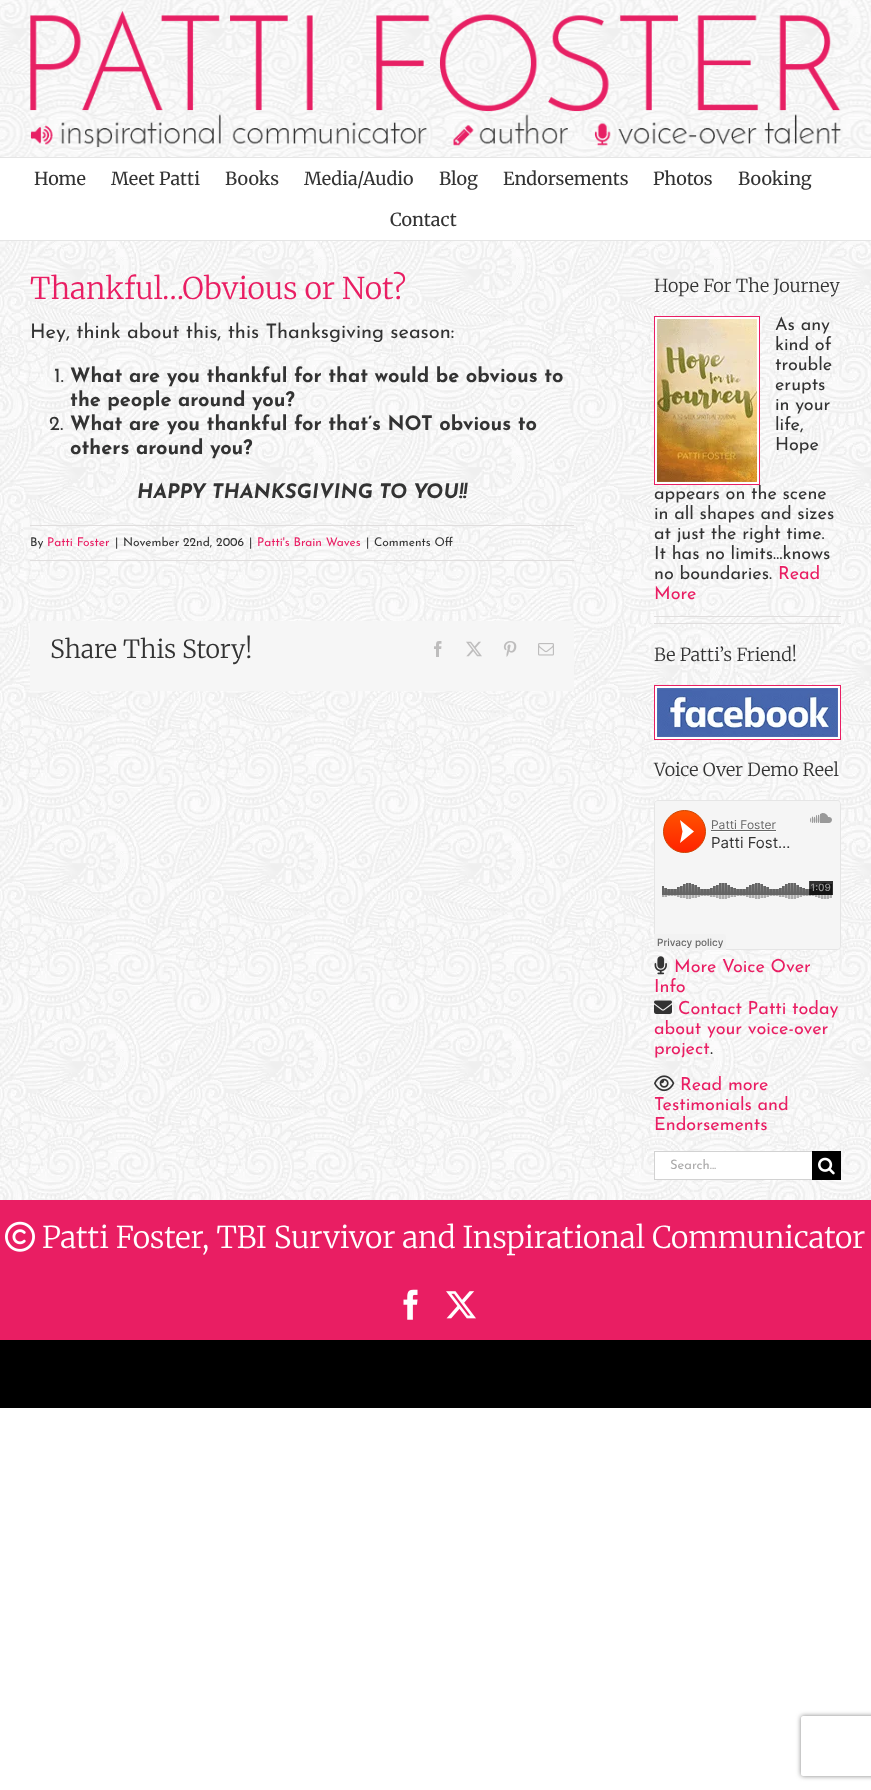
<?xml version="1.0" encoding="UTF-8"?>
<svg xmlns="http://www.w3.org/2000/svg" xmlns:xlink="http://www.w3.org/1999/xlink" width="871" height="1790">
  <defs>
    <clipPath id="clip1"><path d="M 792 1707 h 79 v 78 h -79 z m 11 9 h 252 c 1 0 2 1 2 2 v 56 c 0 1 -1 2 -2 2 h -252 c -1 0 -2 -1 -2 -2 v -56 c 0 -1 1 -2 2 -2 z" clip-rule="evenodd" /></clipPath>
  </defs>
  <rect width="100%" height="100%" fill="#ffffff" />
  <image x="0" y="0" width="871" height="157" xlink:href="image1.png" />
  <rect y="157" width="871" height="1" fill="#e5e5e5" />
  <image x="30" y="11" width="811" height="136" xlink:href="image2.png" />
  <rect y="240" width="871" height="1" fill="#e5e5e5" />
  <image x="0" y="241" width="871" height="959" xlink:href="image3.png" />
  <rect x="30" y="525" width="544" height="1" fill="#e0dede" />
  <rect x="30" y="560" width="544" height="1" fill="#e0dede" />
  <rect x="30" y="621" width="544" height="70" fill="#f6f6f6" />
  <image x="434" y="641" width="8" height="16" xlink:href="image4.png" />
  <image x="466" y="641" width="16" height="16" xlink:href="image5.png" />
  <image x="503" y="641" width="14" height="16" xlink:href="image6.png" />
  <image x="538" y="643" width="16" height="13" xlink:href="image7.png" />
  <rect x="654.5" y="316.5" width="105" height="168" fill="#ffffff" stroke="#e91e63" />
  <image x="657" y="319" width="100" height="163" xlink:href="image8.png" />
  <rect x="654" y="616" width="187" height="1" fill="#e0dede" />
  <rect x="654" y="623" width="187" height="1" fill="#e0dede" />
  <rect x="654.5" y="685.5" width="186" height="54" fill="#ffffff" stroke="#e91e63" />
  <image x="657" y="688" width="181" height="49" xlink:href="image9.png" />
  <image x="654" y="800" width="187" height="150" xlink:href="image10.png" />
  <image x="654" y="956" width="13" height="19" xlink:href="image11.png" />
  <image x="654" y="1000" width="18" height="14" xlink:href="image12.png" />
  <image x="654" y="1075" width="21" height="17" xlink:href="image13.png" />
  <rect x="655" y="1152" width="157" height="27" fill="#ffffff" />
  <rect x="654" y="1151" width="158" height="1" fill="#d2d2d2" />
  <rect x="654" y="1179" width="158" height="1" fill="#d2d2d2" />
  <rect x="654" y="1151" width="1" height="29" fill="#d2d2d2" />
  <rect x="812" y="1151" width="29" height="29" fill="#000000" />
  <image x="818" y="1157" width="17" height="18" xlink:href="image14.png" />
  <rect y="1200" width="871" height="140" fill="#e91e63" />
  <image x="5" y="1221" width="30" height="31" xlink:href="image15.png" />
  <image x="403" y="1289" width="15" height="31" xlink:href="image16.png" />
  <image x="446" y="1291" width="30" height="28" xlink:href="image17.png" />
  <rect y="1340" width="871" height="68" fill="#000000" />
  <g clip-path="url(#clip1)">
    <rect x="801" y="1716" width="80" height="60" rx="2" fill="#808080" filter="blur(2.5px)" />
  </g>
  <text x="34" y="185" style="font-family: Merriweather; font-size: 18px; fill: #333333">Home</text>
  <text x="111" y="185" style="font-family: Merriweather; font-size: 18px; fill: #333333">Meet Patti</text>
  <text x="225" y="185" style="font-family: Merriweather; font-size: 18px; fill: #333333">Books</text>
  <text x="304" y="185" style="font-family: Merriweather; font-size: 18px; fill: #333333">Media/Audio</text>
  <text x="439" y="185" style="font-family: Merriweather; font-size: 18px; fill: #333333">Blog</text>
  <text x="503" y="185" style="font-family: Merriweather; font-size: 18px; fill: #333333">Endorsements</text>
  <text x="653" y="185" style="font-family: Merriweather; font-size: 18px; fill: #333333">Photos</text>
  <text x="738" y="185" style="font-family: Merriweather; font-size: 18px; fill: #333333">Booking</text>
  <text x="390" y="226" style="font-family: Merriweather; font-size: 18px; fill: #333333">Contact</text>
  <text x="30" y="299" style="font-family: Merriweather; font-size: 30px; font-weight: 300; fill: #e91e63">Thankful…Obvious or Not?</text>
  <text x="30" y="338" style="font-family: Josefin Sans; font-size: 20px; fill: #333333">Hey, think about this, this Thanksgiving season:</text>
  <text x="54" y="382" style="font-family: Josefin Sans; font-size: 20px; fill: #333333">1.</text>
  <text x="70" y="382" style="font-family: Josefin Sans; font-size: 20px; font-weight: bold; fill: #333333">What are you thankful for that would be obvious to</text>
  <text x="70" y="406" style="font-family: Josefin Sans; font-size: 20px; font-weight: bold; fill: #333333">the people around you?</text>
  <text x="49" y="430" style="font-family: Josefin Sans; font-size: 20px; fill: #333333">2.</text>
  <text x="70" y="430" style="font-family: Josefin Sans; font-size: 20px; font-weight: bold; fill: #333333">What are you thankful for that’s NOT obvious to</text>
  <text x="70" y="454" style="font-family: Josefin Sans; font-size: 20px; font-weight: bold; fill: #333333">others around you?</text>
  <text x="137" y="498" style="font-family: Josefin Sans; font-size: 20px; font-weight: bold; font-style: italic; fill: #333333">HAPPY THANKSGIVING TO YOU!!</text>
  <text x="30" y="546" style="font-family: Josefin Sans; font-size: 12px; fill: #333333">By</text>
  <text x="47" y="546" style="font-family: Josefin Sans; font-size: 12px; fill: #e91e63">Patti Foster</text>
  <text x="115" y="546" style="font-family: Josefin Sans; font-size: 12px; fill: #333333">|</text>
  <text x="123" y="546" style="font-family: Josefin Sans; font-size: 12px; fill: #333333">November 22nd, 2006</text>
  <text x="249" y="546" style="font-family: Josefin Sans; font-size: 12px; fill: #333333">|</text>
  <text x="257" y="546" style="font-family: Josefin Sans; font-size: 12px; fill: #e91e63">Patti's Brain Waves</text>
  <text x="366" y="546" style="font-family: Josefin Sans; font-size: 12px; fill: #333333">|</text>
  <text x="374" y="546" style="font-family: Josefin Sans; font-size: 12px; fill: #333333">Comments Off</text>
  <text x="50" y="658" style="font-family: Merriweather; font-size: 25px; font-weight: 300; fill: #333333">Share This Story!</text>
  <text x="654" y="292" style="font-family: Merriweather; font-size: 18px; font-weight: 300; fill: #333333">Hope For The Journey</text>
  <text x="775" y="330" style="font-family: Josefin Sans; font-size: 18px; fill: #333333">As any</text>
  <text x="775" y="350" style="font-family: Josefin Sans; font-size: 18px; fill: #333333">kind of</text>
  <text x="775" y="370" style="font-family: Josefin Sans; font-size: 18px; fill: #333333">trouble</text>
  <text x="775" y="390" style="font-family: Josefin Sans; font-size: 18px; fill: #333333">erupts</text>
  <text x="775" y="410" style="font-family: Josefin Sans; font-size: 18px; fill: #333333">in your</text>
  <text x="775" y="430" style="font-family: Josefin Sans; font-size: 18px; fill: #333333">life,</text>
  <text x="775" y="450" style="font-family: Josefin Sans; font-size: 18px; fill: #333333">Hope</text>
  <text x="654" y="499" style="font-family: Josefin Sans; font-size: 18px; fill: #333333">appears on the scene</text>
  <text x="654" y="519" style="font-family: Josefin Sans; font-size: 18px; fill: #333333">in all shapes and sizes</text>
  <text x="654" y="539" style="font-family: Josefin Sans; font-size: 18px; fill: #333333">at just the right time.</text>
  <text x="654" y="559" style="font-family: Josefin Sans; font-size: 18px; fill: #333333">It has no limits…knows</text>
  <text x="654" y="579" style="font-family: Josefin Sans; font-size: 18px; fill: #333333">no boundaries.</text>
  <text x="778" y="579" style="font-family: Josefin Sans; font-size: 18px; fill: #e91e63">Read</text>
  <text x="654" y="599" style="font-family: Josefin Sans; font-size: 18px; fill: #e91e63">More</text>
  <text x="654" y="661" style="font-family: Merriweather; font-size: 18px; font-weight: 300; fill: #333333">Be Patti’s Friend!</text>
  <text x="654" y="776" style="font-family: Merriweather; font-size: 18px; font-weight: 300; fill: #333333">Voice Over Demo Reel</text>
  <text x="674" y="972" style="font-family: Josefin Sans; font-size: 18px; fill: #e91e63">More Voice Over</text>
  <text x="654" y="992" style="font-family: Josefin Sans; font-size: 18px; fill: #e91e63">Info</text>
  <text x="678" y="1014" style="font-family: Josefin Sans; font-size: 18px; fill: #e91e63">Contact Patti today</text>
  <text x="654" y="1034" style="font-family: Josefin Sans; font-size: 18px; fill: #e91e63">about your voice-over</text>
  <text x="654" y="1054" style="font-family: Josefin Sans; font-size: 18px; fill: #e91e63">project</text>
  <text x="710" y="1054" style="font-family: Josefin Sans; font-size: 18px; fill: #333333">.</text>
  <text x="680" y="1090" style="font-family: Josefin Sans; font-size: 18px; fill: #e91e63">Read more</text>
  <text x="654" y="1110" style="font-family: Josefin Sans; font-size: 18px; fill: #e91e63">Testimonials and</text>
  <text x="654" y="1130" style="font-family: Josefin Sans; font-size: 18px; fill: #e91e63">Endorsements</text>
  <text x="670" y="1169" style="font-family: Josefin Sans; font-size: 13px; fill: #aaa9a9">Search...</text>
  <text x="42" y="1248" style="font-family: Merriweather; font-size: 30px; font-weight: 300; fill: #ffffff">Patti Foster, TBI Survivor and Inspirational Communicator</text>
</svg>
